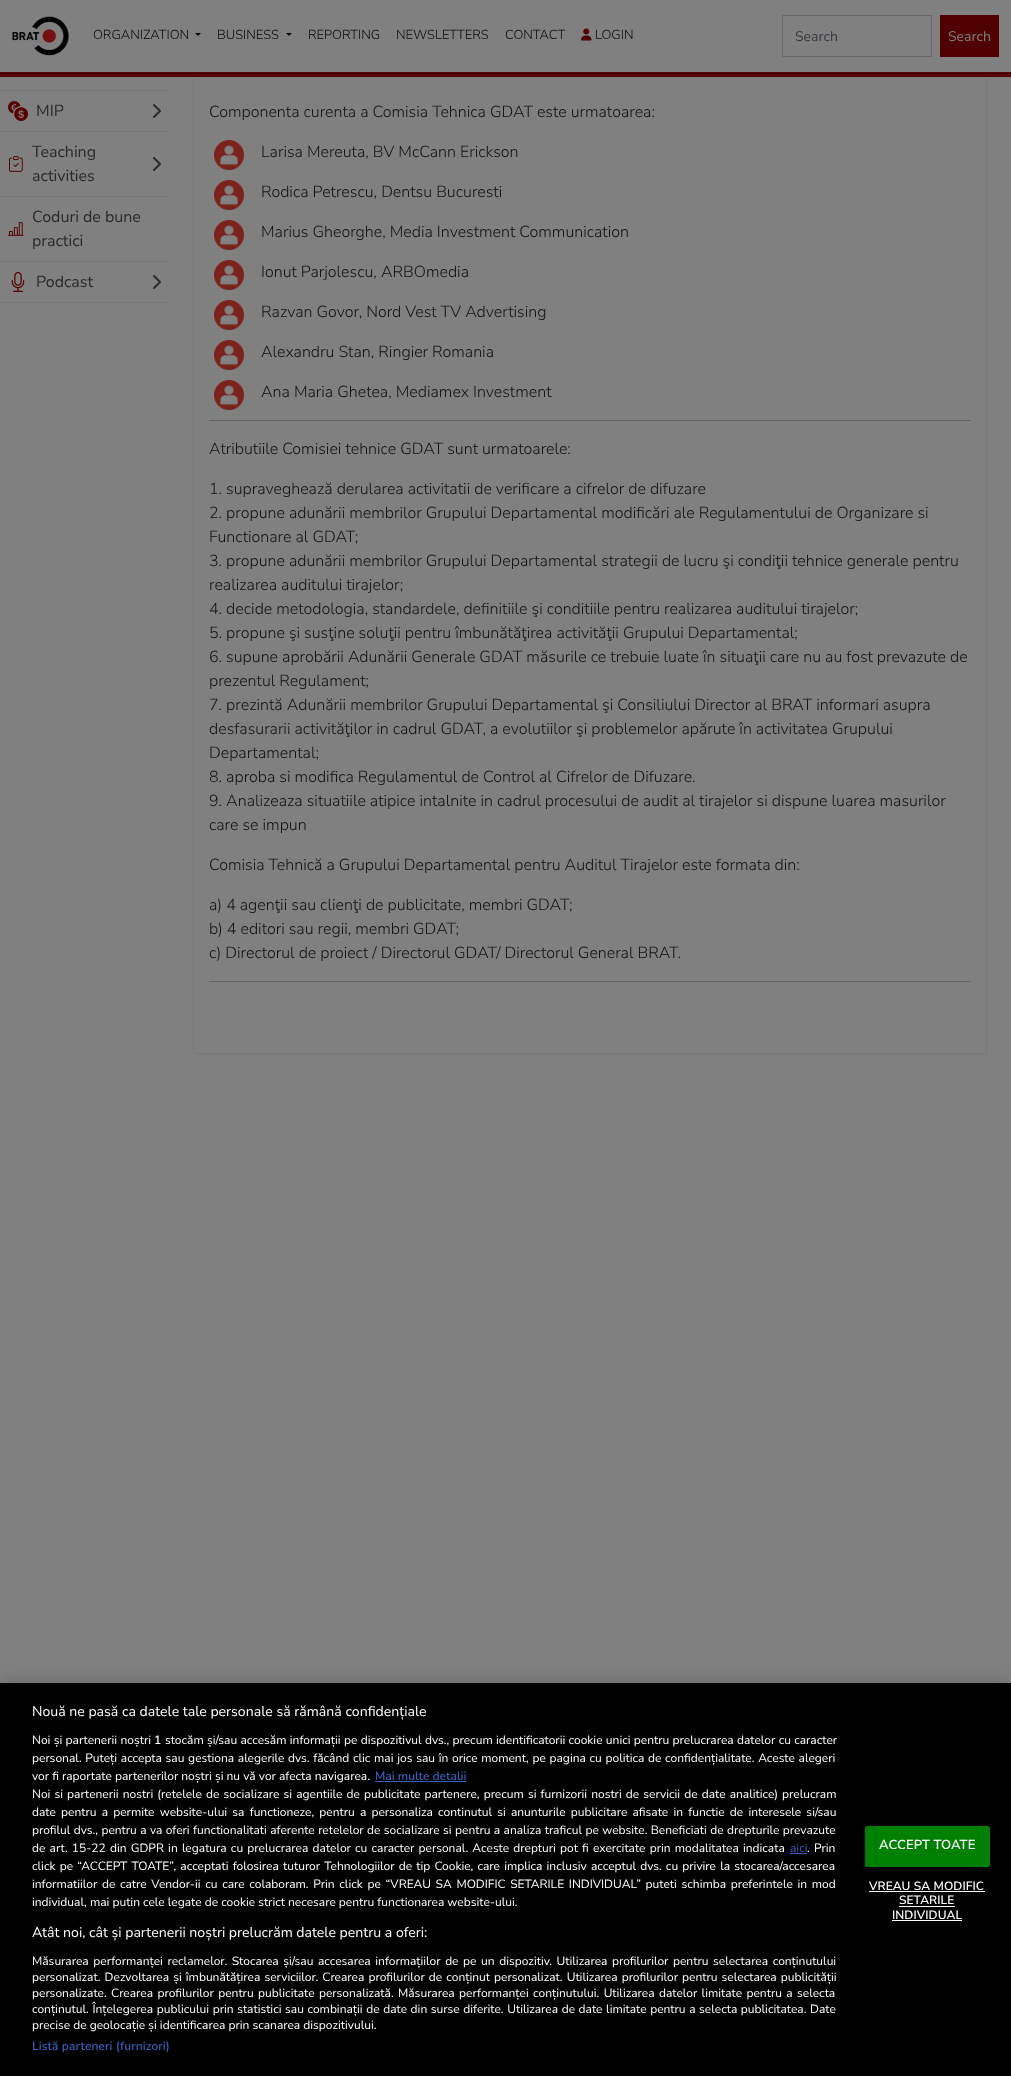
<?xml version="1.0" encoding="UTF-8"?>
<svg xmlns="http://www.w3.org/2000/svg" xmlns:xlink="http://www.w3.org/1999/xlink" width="1011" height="2076">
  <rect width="100%" height="100%" fill="#808080" />
  <rect x="193.5" y="-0.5" width="793" height="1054" fill="none" stroke="#797979" />
  <rect x="193" width="794" height="72" fill="#808080" />
  <rect y="72" width="1011" height="5" fill="#500000" />
  <image x="12" y="16" width="57" height="40" xlink:href="image1.png" />
  <path d="M 195 33 h 6 l -3 3 z" fill="#090909" />
  <path d="M 286 33 h 6 l -3 3 z" fill="#090909" />
  <image x="581" y="28" width="11" height="13" xlink:href="image2.png" />
  <rect x="782.5" y="15.5" width="149" height="41" fill="none" stroke="#676a6d" />
  <rect x="940" y="15" width="59" height="42" fill="#500000" />
  <rect y="90" width="169" height="1" fill="#757678" />
  <rect y="131" width="169" height="1" fill="#757678" />
  <image x="8" y="101" width="20" height="20" xlink:href="image3.png" />
  <image x="153" y="104" width="8" height="14" xlink:href="image4.png" />
  <rect y="196" width="169" height="1" fill="#757678" />
  <image x="9" y="156" width="14" height="16" xlink:href="image5.png" />
  <image x="153" y="157" width="8" height="14" xlink:href="image4.png" />
  <rect y="261" width="169" height="1" fill="#757678" />
  <image x="8" y="222" width="16" height="14" xlink:href="image6.png" />
  <rect y="302" width="169" height="1" fill="#757678" />
  <image x="11" y="272" width="14" height="20" xlink:href="image7.png" />
  <image x="153" y="275" width="8" height="14" xlink:href="image4.png" />
  <image x="214" y="140" width="30" height="30" xlink:href="image8.png" />
  <image x="214" y="180" width="30" height="30" xlink:href="image8.png" />
  <image x="214" y="220" width="30" height="30" xlink:href="image8.png" />
  <image x="214" y="260" width="30" height="30" xlink:href="image8.png" />
  <image x="214" y="300" width="30" height="30" xlink:href="image9.png" />
  <image x="214" y="340" width="30" height="30" xlink:href="image8.png" />
  <image x="214" y="380" width="30" height="30" xlink:href="image8.png" />
  <rect x="209" y="420" width="762" height="1" fill="#646565" />
  <rect x="209" y="981" width="762" height="1" fill="#646565" />
  <rect y="1683" width="1011" height="393" fill="#000000" fill-opacity="0.2" filter="blur(9px)" />
  <rect y="1683" width="1011" height="393" fill="#000000" />
  <rect x="375" y="1781" width="91" height="1" fill="#3860be" />
  <rect x="790" y="1853" width="17" height="1" fill="#3860be" />
  <rect x="865.5" y="1826.5" width="124" height="40" rx="1.5" fill="#008000" stroke="#008000" />
  <rect x="869" y="1891" width="116" height="1" fill="#ffffff" />
  <rect x="899" y="1906" width="56" height="1" fill="#ffffff" />
  <rect x="892" y="1920" width="70" height="1" fill="#ffffff" />
  <text x="93" y="39" style="font-family: Nunito Sans; font-size: 13px; font-weight: 300; fill: #090909">ORGANIZATION</text>
  <text x="217" y="39" style="font-family: Nunito Sans; font-size: 13px; font-weight: 300; fill: #090909">BUSINESS</text>
  <text x="308" y="39" style="font-family: Nunito Sans; font-size: 13px; font-weight: 300; fill: #090909">REPORTING</text>
  <text x="396" y="39" style="font-family: Nunito Sans; font-size: 13px; font-weight: 300; fill: #090909">NEWSLETTERS</text>
  <text x="505" y="39" style="font-family: Nunito Sans; font-size: 13px; font-weight: 300; fill: #090909">CONTACT</text>
  <text x="595" y="39" style="font-family: Nunito Sans; font-size: 13px; font-weight: 300; fill: #090909">LOGIN</text>
  <text x="795" y="41" style="font-family: Nunito Sans; font-size: 14px; fill: #363b3f">Search</text>
  <text x="948" y="41" style="font-family: Nunito Sans; font-size: 14px; fill: #808080">Search</text>
  <text x="36" y="116" style="font-family: Nunito Sans; font-size: 16px; fill: #2a2a2a">MIP</text>
  <text x="32" y="157" style="font-family: Nunito Sans; font-size: 16px; fill: #2a2a2a">Teaching</text>
  <text x="32" y="181" style="font-family: Nunito Sans; font-size: 16px; fill: #2a2a2a">activities</text>
  <text x="32" y="222" style="font-family: Nunito Sans; font-size: 16px; fill: #2a2a2a">Coduri de bune</text>
  <text x="32" y="246" style="font-family: Nunito Sans; font-size: 16px; fill: #2a2a2a">practici</text>
  <text x="36" y="287" style="font-family: Nunito Sans; font-size: 16px; fill: #2a2a2a">Podcast</text>
  <text x="209" y="117" style="font-family: Nunito Sans; font-size: 16px; font-weight: 300; fill: #111315">Componenta curenta a Comisia Tehnica GDAT este urmatoarea:</text>
  <text x="261" y="157" style="font-family: Nunito Sans; font-size: 16px; font-weight: 300; fill: #111315">Larisa Mereuta, BV McCann Erickson</text>
  <text x="261" y="197" style="font-family: Nunito Sans; font-size: 16px; font-weight: 300; fill: #111315">Rodica Petrescu, Dentsu Bucuresti</text>
  <text x="261" y="237" style="font-family: Nunito Sans; font-size: 16px; font-weight: 300; fill: #111315">Marius Gheorghe, Media Investment Communication</text>
  <text x="261" y="277" style="font-family: Nunito Sans; font-size: 16px; font-weight: 300; fill: #111315">Ionut Parjolescu, ARBOmedia</text>
  <text x="261" y="317" style="font-family: Nunito Sans; font-size: 16px; font-weight: 300; fill: #111315">Razvan Govor, Nord Vest TV Advertising</text>
  <text x="261" y="357" style="font-family: Nunito Sans; font-size: 16px; font-weight: 300; fill: #111315">Alexandru Stan, Ringier Romania</text>
  <text x="261" y="397" style="font-family: Nunito Sans; font-size: 16px; font-weight: 300; fill: #111315">Ana Maria Ghetea, Mediamex Investment</text>
  <text x="209" y="454" style="font-family: Nunito Sans; font-size: 16px; font-weight: 300; fill: #111315">Atributiile Comisiei tehnice GDAT sunt urmatoarele:</text>
  <text x="209" y="494" style="font-family: Nunito Sans; font-size: 16px; font-weight: 300; fill: #111315">1. supraveghează derularea activitatii de verificare a cifrelor de difuzare</text>
  <text x="209" y="518" style="font-family: Nunito Sans; font-size: 16px; font-weight: 300; fill: #111315">2. propune adunării membrilor Grupului Departamental modificări ale Regulamentului de Organizare si</text>
  <text x="209" y="542" style="font-family: Nunito Sans; font-size: 16px; font-weight: 300; fill: #111315">Functionare al GDAT;</text>
  <text x="209" y="566" style="font-family: Nunito Sans; font-size: 16px; font-weight: 300; fill: #111315">3. propune adunării membrilor Grupului Departamental strategii de lucru şi condiţii tehnice generale pentru</text>
  <text x="209" y="590" style="font-family: Nunito Sans; font-size: 16px; font-weight: 300; fill: #111315">realizarea auditului tirajelor;</text>
  <text x="209" y="614" style="font-family: Nunito Sans; font-size: 16px; font-weight: 300; fill: #111315">4. decide metodologia, standardele, definitiile şi conditiile pentru realizarea auditului tirajelor;</text>
  <text x="209" y="638" style="font-family: Nunito Sans; font-size: 16px; font-weight: 300; fill: #111315">5. propune şi susţine soluţii pentru îmbunătăţirea activităţii Grupului Departamental;</text>
  <text x="209" y="662" style="font-family: Nunito Sans; font-size: 16px; font-weight: 300; fill: #111315">6. supune aprobării Adunării Generale GDAT măsurile ce trebuie luate în situaţii care nu au fost prevazute de</text>
  <text x="209" y="686" style="font-family: Nunito Sans; font-size: 16px; font-weight: 300; fill: #111315">prezentul Regulament;</text>
  <text x="209" y="710" style="font-family: Nunito Sans; font-size: 16px; font-weight: 300; fill: #111315">7. prezintă Adunării membrilor Grupului Departamental şi Consiliului Director al BRAT informari asupra</text>
  <text x="209" y="734" style="font-family: Nunito Sans; font-size: 16px; font-weight: 300; fill: #111315">desfasurarii activităţilor in cadrul GDAT, a evolutiilor şi problemelor apărute în activitatea Grupului</text>
  <text x="209" y="758" style="font-family: Nunito Sans; font-size: 16px; font-weight: 300; fill: #111315">Departamental;</text>
  <text x="209" y="782" style="font-family: Nunito Sans; font-size: 16px; font-weight: 300; fill: #111315">8. aproba si modifica Regulamentul de Control al Cifrelor de Difuzare.</text>
  <text x="209" y="806" style="font-family: Nunito Sans; font-size: 16px; font-weight: 300; fill: #111315">9. Analizeaza situatiile atipice intalnite in cadrul procesului de audit al tirajelor si dispune luarea masurilor</text>
  <text x="209" y="830" style="font-family: Nunito Sans; font-size: 16px; font-weight: 300; fill: #111315">care se impun</text>
  <text x="209" y="870" style="font-family: Nunito Sans; font-size: 16px; font-weight: 300; fill: #111315">Comisia Tehnică a Grupului Departamental pentru Auditul Tirajelor este formata din:</text>
  <text x="209" y="910" style="font-family: Nunito Sans; font-size: 16px; font-weight: 300; fill: #111315">a) 4 agenţii sau clienţi de publicitate, membri GDAT;</text>
  <text x="209" y="934" style="font-family: Nunito Sans; font-size: 16px; font-weight: 300; fill: #111315">b) 4 editori sau regii, membri GDAT;</text>
  <text x="209" y="958" style="font-family: Nunito Sans; font-size: 16px; font-weight: 300; fill: #111315">c) Directorul de proiect / Directorul GDAT/ Directorul General BRAT.</text>
  <text x="32" y="1716" style="font-family: Nunito Sans; font-size: 14.1px; fill: #ffffff">Nouă ne pasă ca datele tale personale să rămână confidențiale</text>
  <text x="32" y="1744" word-spacing="0.25" style="font-family: Nunito Sans; font-size: 12px; fill: #ffffff">Noi și partenerii noștri</text>
  <text x="154" y="1744" style="font-family: Nunito Sans; font-size: 12px; font-weight: 600; fill: #ffffff">1</text>
  <text x="165" y="1744" word-spacing="0.25" style="font-family: Nunito Sans; font-size: 12px; fill: #ffffff">stocăm și/sau accesăm informații pe dispozitivul dvs., precum identificatorii cookie unici pentru prelucrarea datelor cu caracter</text>
  <text x="32" y="1762" word-spacing="0.6" style="font-family: Nunito Sans; font-size: 12px; fill: #ffffff">personal. Puteți accepta sau gestiona alegerile dvs. făcând clic mai jos sau în orice moment, pe pagina cu politica de confidențialitate. Aceste alegeri</text>
  <text x="32" y="1780" style="font-family: Nunito Sans; font-size: 12px; fill: #ffffff">vor fi raportate partenerilor noștri și nu vă vor afecta navigarea.</text>
  <text x="375" y="1780" style="font-family: Nunito Sans; font-size: 12px; font-weight: 600; fill: #3860be">Mai multe detalii</text>
  <text x="32" y="1798" word-spacing="1" style="font-family: Nunito Sans; font-size: 12px; fill: #ffffff">Noi si partenerii nostri (retelele de socializare si agentiile de publicitate partenere, precum si furnizorii nostri de servicii de date analitice) prelucram</text>
  <text x="32" y="1816" word-spacing="2.1" style="font-family: Nunito Sans; font-size: 12px; fill: #ffffff">date pentru a permite website-ului sa functioneze, pentru a personaliza continutul si anunturile publicitare afisate in functie de interesele si/sau</text>
  <text x="32" y="1834" word-spacing="0.3" style="font-family: Nunito Sans; font-size: 12px; fill: #ffffff">profilul dvs., pentru a va oferi functionalitati aferente retelelor de socializare si pentru a analiza traficul pe website. Beneficiati de drepturile prevazute</text>
  <text x="32" y="1852" word-spacing="1.1" style="font-family: Nunito Sans; font-size: 12px; fill: #ffffff">de art. 15-22 din GDPR in legatura cu prelucrarea datelor cu caracter personal. Aceste drepturi pot fi exercitate prin modalitatea indicata</text>
  <text x="790" y="1852" style="font-family: Nunito Sans; font-size: 12px; fill: #3860be">aici</text>
  <text x="807" y="1852" word-spacing="1.1" style="font-family: Nunito Sans; font-size: 12px; fill: #ffffff">. Prin</text>
  <text x="32" y="1870" word-spacing="1.1" style="font-family: Nunito Sans; font-size: 12px; fill: #ffffff">click pe “ACCEPT TOATE”, acceptati folosirea tuturor Tehnologiilor de tip Cookie, care implica inclusiv acceptul dvs. cu privire la stocarea/accesarea</text>
  <text x="32" y="1888" word-spacing="1.6" style="font-family: Nunito Sans; font-size: 12px; fill: #ffffff">informatiilor de catre Vendor-ii cu care colaboram. Prin click pe “VREAU SA MODIFIC SETARILE INDIVIDUAL” puteti schimba preferintele in mod</text>
  <text x="32" y="1906" style="font-family: Nunito Sans; font-size: 12px; fill: #ffffff">individual, mai putin cele legate de cookie strict necesare pentru functionarea website-ului.</text>
  <text x="32" y="1937" style="font-family: Nunito Sans; font-size: 14.1px; fill: #ffffff">Atât noi, cât și partenerii noștri prelucrăm datele pentru a oferi:</text>
  <text x="32" y="1965" word-spacing="1.5" style="font-family: Nunito Sans; font-size: 12px; fill: #ffffff">Măsurarea performanței reclamelor. Stocarea și/sau accesarea informațiilor de pe un dispozitiv. Utilizarea profilurilor pentru selectarea conținutului</text>
  <text x="32" y="1981" word-spacing="1" style="font-family: Nunito Sans; font-size: 12px; fill: #ffffff">personalizat. Dezvoltarea și îmbunătățirea serviciilor. Crearea profilurilor de conținut personalizat. Utilizarea profilurilor pentru selectarea publicității</text>
  <text x="32" y="1997" word-spacing="1.3" style="font-family: Nunito Sans; font-size: 12px; fill: #ffffff">personalizate. Crearea profilurilor pentru publicitate personalizată. Măsurarea performanței conținutului. Utilizarea datelor limitate pentru a selecta</text>
  <text x="32" y="2013" word-spacing="0.5" style="font-family: Nunito Sans; font-size: 12px; fill: #ffffff">conținutul. Înțelegerea publicului prin statistici sau combinații de date din surse diferite. Utilizarea de date limitate pentru a selecta publicitatea. Date</text>
  <text x="32" y="2029" style="font-family: Nunito Sans; font-size: 12px; fill: #ffffff">precise de geolocație și identificarea prin scanarea dispozitivului.</text>
  <text x="32" y="2050" style="font-family: Nunito Sans; font-size: 12px; font-weight: 600; letter-spacing: 0.1px; fill: #3860be">Listă parteneri (furnizori)</text>
  <text x="879" y="1849" style="font-family: Nunito Sans; font-size: 13px; font-weight: 600; letter-spacing: 0.1px; fill: #ffffff">ACCEPT TOATE</text>
  <text x="869" y="1890" style="font-family: Nunito Sans; font-size: 12px; font-weight: 600; letter-spacing: 0.1px; fill: #ffffff">VREAU SA MODIFIC</text>
  <text x="899" y="1904" style="font-family: Nunito Sans; font-size: 12px; font-weight: 600; letter-spacing: 0.1px; fill: #ffffff">SETARILE</text>
  <text x="892" y="1919" style="font-family: Nunito Sans; font-size: 12px; font-weight: 600; letter-spacing: 0.1px; fill: #ffffff">INDIVIDUAL</text>
</svg>
